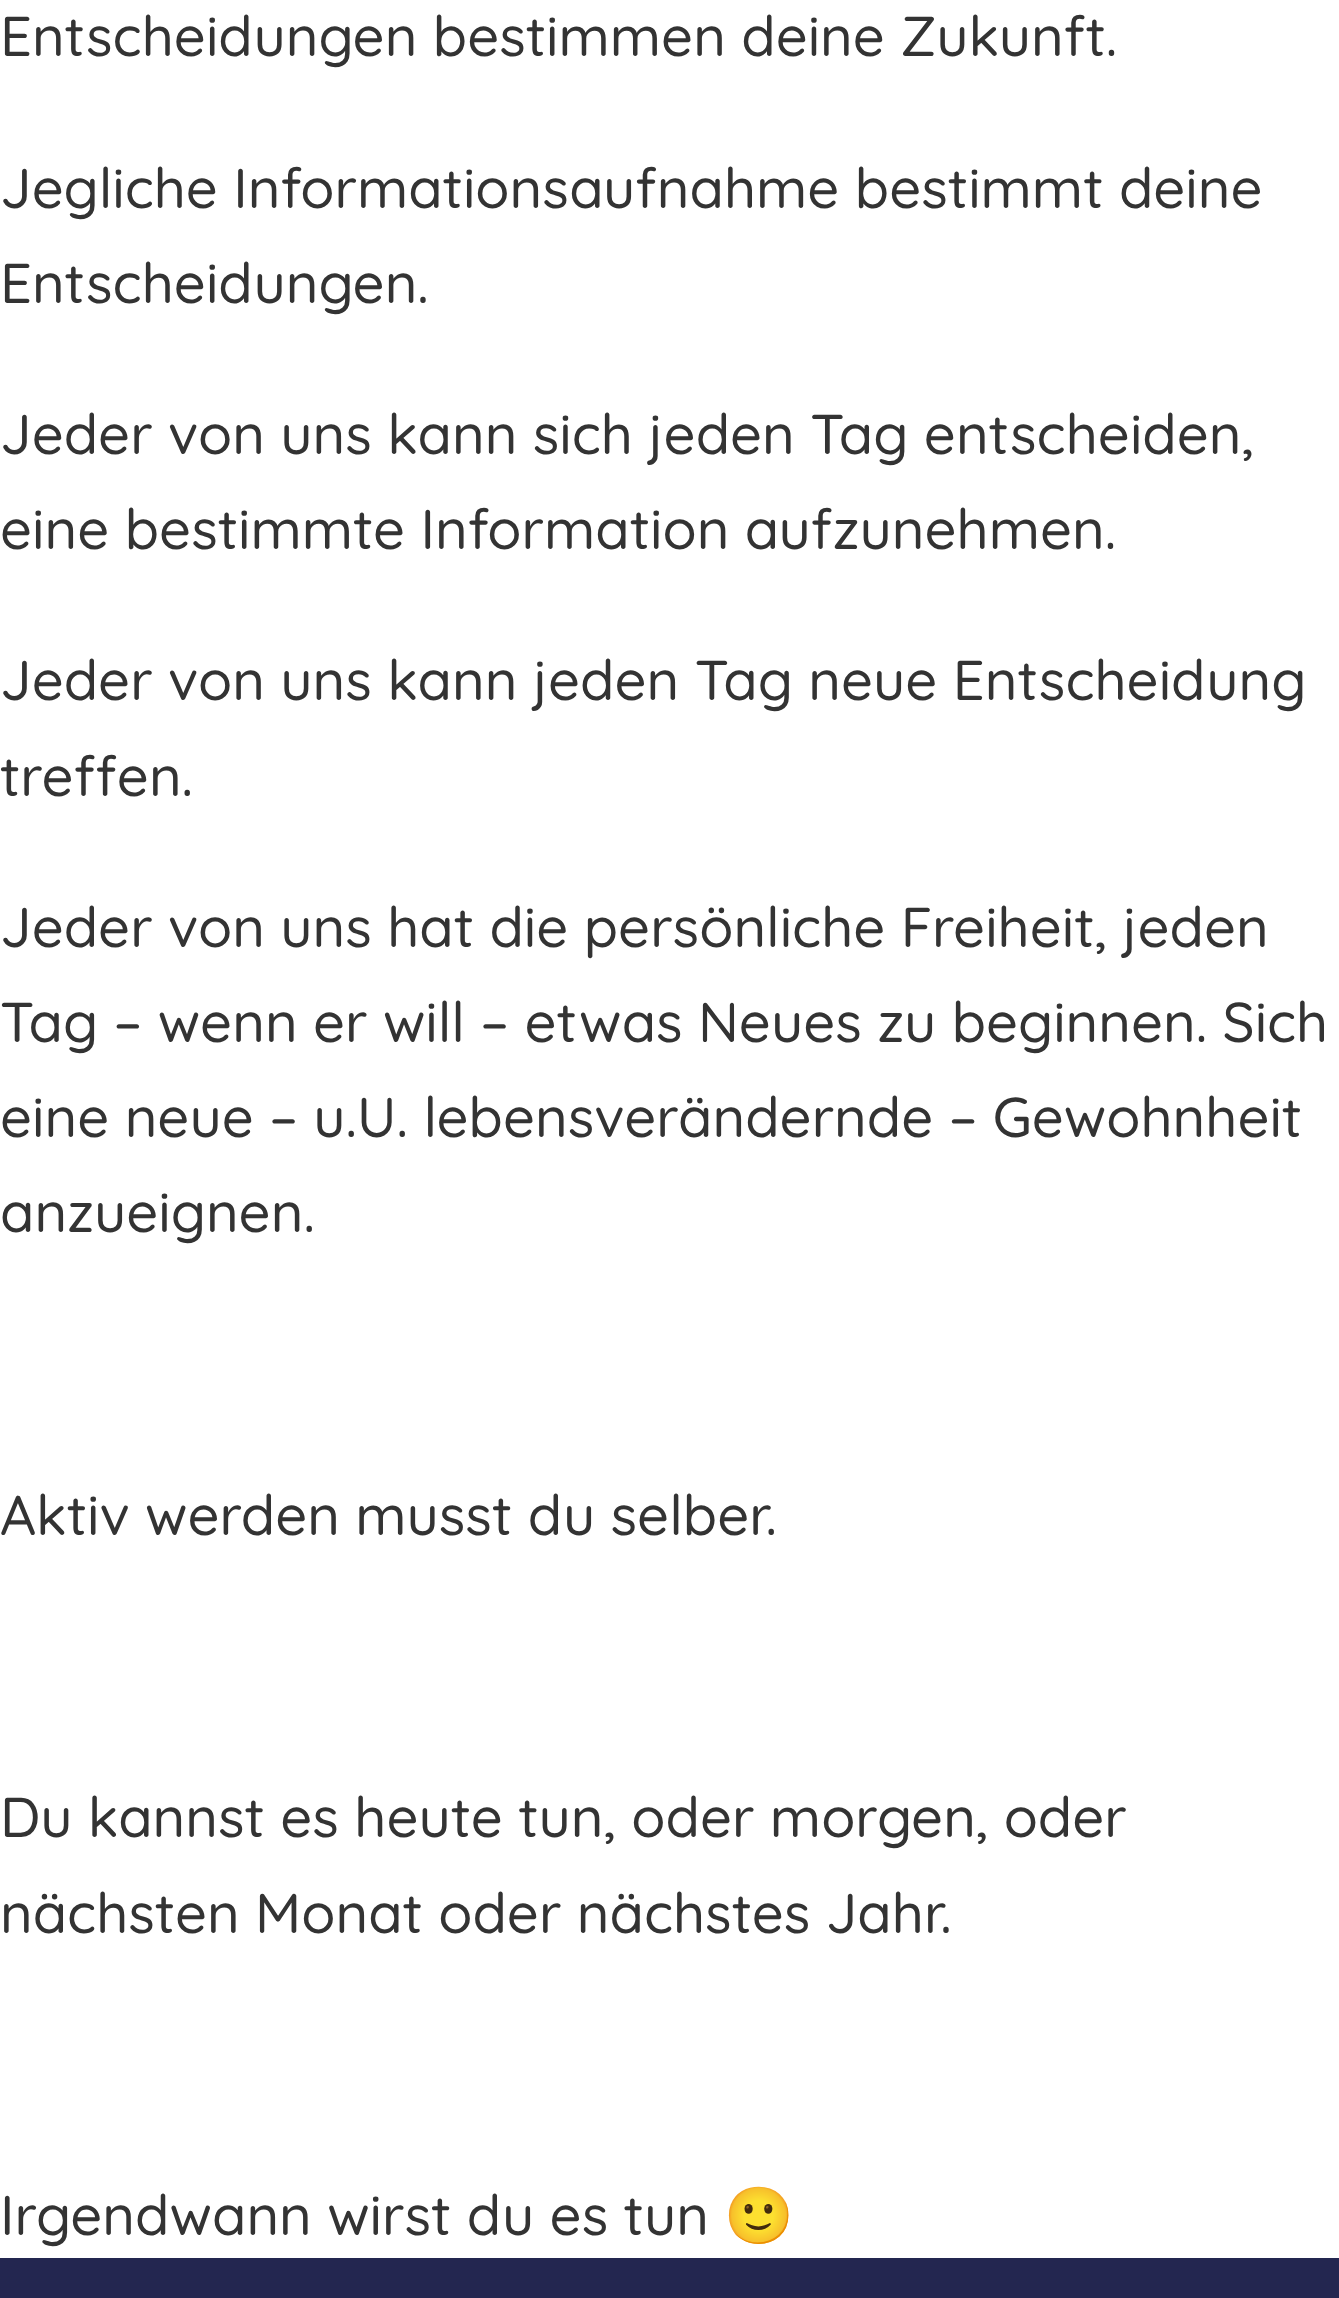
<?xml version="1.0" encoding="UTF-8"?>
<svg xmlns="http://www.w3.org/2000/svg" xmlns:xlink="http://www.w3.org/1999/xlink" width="1339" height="2298">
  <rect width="100%" height="100%" fill="#ffffff" />
  <rect y="2258" width="1339" height="40" fill="#232650" />
  <text x="0" y="56" style="font-family: Quicksand; font-size: 56px; font-weight: 500; fill: #333333">Entscheidungen bestimmen deine Zukunft.</text>
  <text x="0" y="208" style="font-family: Quicksand; font-size: 56px; font-weight: 500; fill: #333333">Jegliche Informationsaufnahme bestimmt deine</text>
  <text x="0" y="303" style="font-family: Quicksand; font-size: 56px; font-weight: 500; fill: #333333">Entscheidungen.</text>
  <text x="0" y="454" style="font-family: Quicksand; font-size: 56px; font-weight: 500; fill: #333333">Jeder von uns kann sich jeden Tag entscheiden,</text>
  <text x="0" y="549" style="font-family: Quicksand; font-size: 56px; font-weight: 500; fill: #333333">eine bestimmte Information aufzunehmen.</text>
  <text x="0" y="700" style="font-family: Quicksand; font-size: 56px; font-weight: 500; fill: #333333">Jeder von uns kann jeden Tag neue Entscheidung</text>
  <text x="0" y="796" style="font-family: Quicksand; font-size: 56px; font-weight: 500; fill: #333333">treffen.</text>
  <text x="0" y="947" style="font-family: Quicksand; font-size: 56px; font-weight: 500; fill: #333333">Jeder von uns hat die persönliche Freiheit, jeden</text>
  <text x="0" y="1042" style="font-family: Quicksand; font-size: 56px; font-weight: 500; fill: #333333">Tag – wenn er will – etwas Neues zu beginnen. Sich</text>
  <text x="0" y="1137" style="font-family: Quicksand; font-size: 56px; font-weight: 500; fill: #333333">eine neue – u.U. lebensverändernde – Gewohnheit</text>
  <text x="0" y="1232" style="font-family: Quicksand; font-size: 56px; font-weight: 500; fill: #333333">anzueignen.</text>
  <text x="0" y="1535" style="font-family: Quicksand; font-size: 56px; font-weight: 500; fill: #333333">Aktiv werden musst du selber.</text>
  <text x="0" y="1837" style="font-family: Quicksand; font-size: 56px; font-weight: 500; fill: #333333">Du kannst es heute tun, oder morgen, oder</text>
  <text x="0" y="1933" style="font-family: Quicksand; font-size: 56px; font-weight: 500; fill: #333333">nächsten Monat oder nächstes Jahr.</text>
  <text x="0" y="2235" style="font-family: Quicksand; font-size: 56px; font-weight: 500; fill: #333333">Irgendwann wirst du es tun</text>
  <text x="724" y="2235" style="font-family: Noto Color Emoji; font-size: 56px; fill: #333333">🙂</text>
</svg>
